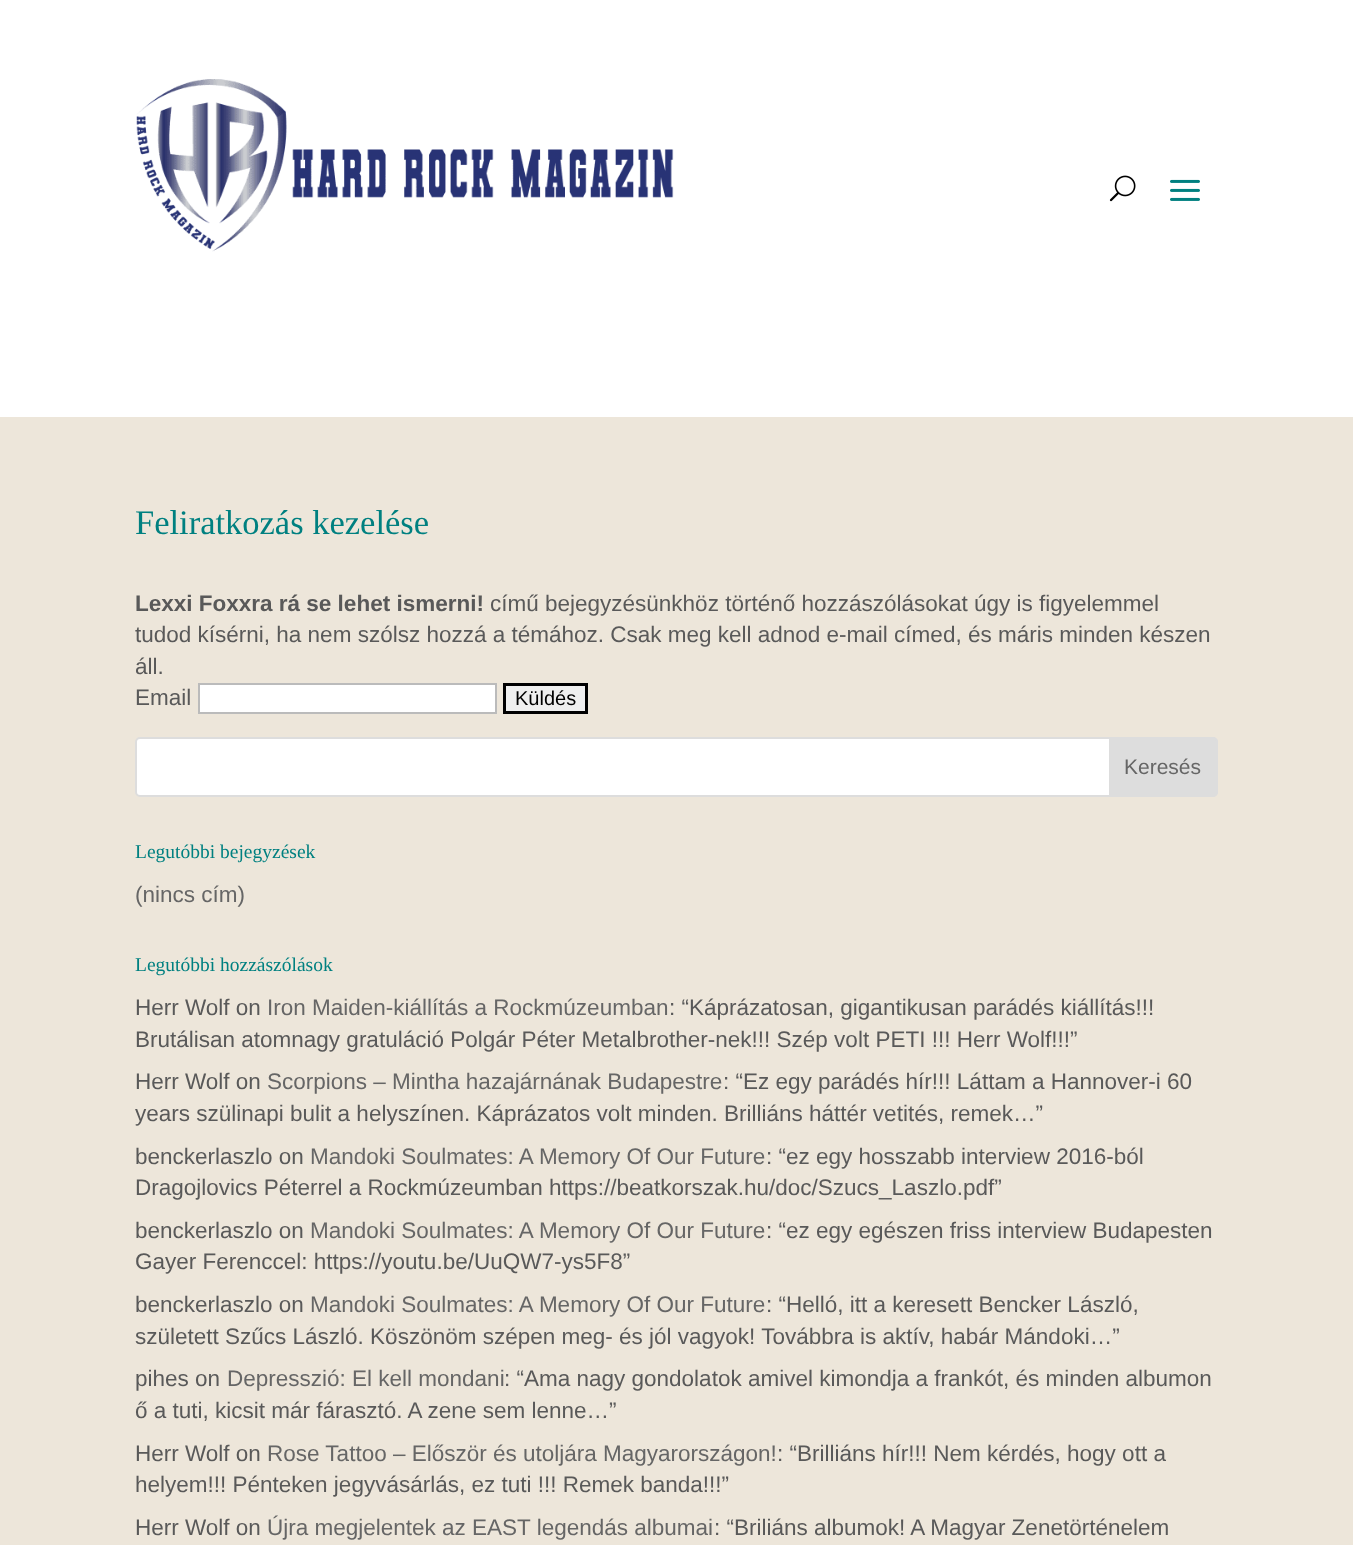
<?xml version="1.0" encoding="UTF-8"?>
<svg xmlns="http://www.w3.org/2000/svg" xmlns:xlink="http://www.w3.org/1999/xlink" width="1353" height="1545">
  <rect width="100%" height="100%" fill="#ede6da" />
  <rect width="1353" height="417" fill="#ffffff" />
  <image x="136" y="79" width="538" height="173" xlink:href="image1.png" />
  <image x="1109" y="175" width="27" height="27" xlink:href="image2.png" />
  <image x="1170" y="179" width="30" height="22" xlink:href="image3.png" />
  <rect x="199" y="684" width="297" height="29" fill="#ffffff" stroke="#bbbbbb" stroke-width="2" />
  <rect x="504.5" y="684.5" width="82" height="28" fill="#efefef" stroke="#000000" stroke-width="3" />
  <rect x="136" y="738" width="1081" height="58" rx="4" fill="#ffffff" stroke="#dddddd" stroke-width="2" />
  <path d="M 1110 738 h 103 c 2 0 4 2 4 4 v 50 c 0 2 -2 4 -4 4 h -103 z" fill="#dddddd" stroke="#dddddd" stroke-width="2" />
  <text x="135" y="534" style="font-family: Liberation Serif; font-size: 34.5px; fill: #008080">Feliratkozás kezelése</text>
  <text x="135" y="611" style="font-family: Liberation Sans; font-size: 22.5px; font-weight: bold; fill: #595959">Lexxi Foxxra rá se lehet ismerni!</text>
  <text x="490" y="611" style="font-family: Liberation Sans; font-size: 22.5px; fill: #595959">című bejegyzésünkhöz történő hozzászólásokat úgy is figyelemmel</text>
  <text x="135" y="642" style="font-family: Liberation Sans; font-size: 22.5px; fill: #595959">tudod kísérni, ha nem szólsz hozzá a témához. Csak meg kell adnod e-mail címed, és máris minden készen</text>
  <text x="135" y="674" style="font-family: Liberation Sans; font-size: 22.5px; fill: #595959">áll.</text>
  <text x="135" y="705" style="font-family: Liberation Sans; font-size: 22.5px; fill: #595959">Email</text>
  <text x="515" y="705" style="font-family: Liberation Sans; font-size: 20px; fill: #000000">Küldés</text>
  <text x="1124" y="774" style="font-family: Liberation Sans; font-size: 21px; fill: #666666">Keresés</text>
  <text x="135" y="858" style="font-family: Liberation Serif; font-size: 19.5px; fill: #008080">Legutóbbi bejegyzések</text>
  <text x="135" y="902" style="font-family: Liberation Sans; font-size: 22.5px; fill: #666666">(nincs cím)</text>
  <text x="135" y="971" style="font-family: Liberation Serif; font-size: 19.5px; fill: #008080">Legutóbbi hozzászólások</text>
  <text x="135" y="1015" style="font-family: Liberation Sans; font-size: 22.5px; fill: #595959">Herr Wolf on</text>
  <text x="267" y="1015" style="font-family: Liberation Sans; font-size: 22.5px; fill: #666666">Iron Maiden-kiállítás a Rockmúzeumban</text>
  <text x="669" y="1015" style="font-family: Liberation Sans; font-size: 22.5px; fill: #595959">: “Káprázatosan, gigantikusan parádés kiállítás!!!</text>
  <text x="135" y="1047" style="font-family: Liberation Sans; font-size: 22.5px; fill: #595959">Brutálisan atomnagy gratuláció Polgár Péter Metalbrother-nek!!! Szép volt PETI !!! Herr Wolf!!!”</text>
  <text x="135" y="1089" style="font-family: Liberation Sans; font-size: 22.5px; fill: #595959">Herr Wolf on</text>
  <text x="267" y="1089" style="font-family: Liberation Sans; font-size: 22.5px; fill: #666666">Scorpions – Mintha hazajárnának Budapestre</text>
  <text x="723" y="1089" style="font-family: Liberation Sans; font-size: 22.5px; fill: #595959">: “Ez egy parádés hír!!! Láttam a Hannover-i 60</text>
  <text x="135" y="1121" style="font-family: Liberation Sans; font-size: 22.5px; fill: #595959">years szülinapi bulit a helyszínen. Káprázatos volt minden. Brilliáns háttér vetités, remek…”</text>
  <text x="135" y="1164" style="font-family: Liberation Sans; font-size: 22.5px; fill: #595959">benckerlaszlo on</text>
  <text x="310" y="1164" style="font-family: Liberation Sans; font-size: 22.5px; fill: #666666">Mandoki Soulmates: A Memory Of Our Future</text>
  <text x="766" y="1164" style="font-family: Liberation Sans; font-size: 22.5px; fill: #595959">: “ez egy hosszabb interview 2016-ból</text>
  <text x="135" y="1195" style="font-family: Liberation Sans; font-size: 22.5px; fill: #595959">Dragojlovics Péterrel a Rockmúzeumban https://beatkorszak.hu/doc/Szucs_Laszlo.pdf”</text>
  <text x="135" y="1238" style="font-family: Liberation Sans; font-size: 22.5px; fill: #595959">benckerlaszlo on</text>
  <text x="310" y="1238" style="font-family: Liberation Sans; font-size: 22.5px; fill: #666666">Mandoki Soulmates: A Memory Of Our Future</text>
  <text x="766" y="1238" style="font-family: Liberation Sans; font-size: 22.5px; fill: #595959">: “ez egy egészen friss interview Budapesten</text>
  <text x="135" y="1269" style="font-family: Liberation Sans; font-size: 22.5px; fill: #595959">Gayer Ferenccel: https://youtu.be/UuQW7-ys5F8”</text>
  <text x="135" y="1312" style="font-family: Liberation Sans; font-size: 22.5px; fill: #595959">benckerlaszlo on</text>
  <text x="310" y="1312" style="font-family: Liberation Sans; font-size: 22.5px; fill: #666666">Mandoki Soulmates: A Memory Of Our Future</text>
  <text x="766" y="1312" style="font-family: Liberation Sans; font-size: 22.5px; fill: #595959">: “Helló, itt a keresett Bencker László,</text>
  <text x="135" y="1344" style="font-family: Liberation Sans; font-size: 22.5px; fill: #595959">született Szűcs László. Köszönöm szépen meg- és jól vagyok! Továbbra is aktív, habár Mándoki…”</text>
  <text x="135" y="1386" style="font-family: Liberation Sans; font-size: 22.5px; fill: #595959">pihes on</text>
  <text x="227" y="1386" style="font-family: Liberation Sans; font-size: 22.5px; fill: #666666">Depresszió: El kell mondani</text>
  <text x="504" y="1386" style="font-family: Liberation Sans; font-size: 22.5px; fill: #595959">: “Ama nagy gondolatok amivel kimondja a frankót, és minden albumon</text>
  <text x="135" y="1418" style="font-family: Liberation Sans; font-size: 22.5px; fill: #595959">ő a tuti, kicsit már fárasztó. A zene sem lenne…”</text>
  <text x="135" y="1461" style="font-family: Liberation Sans; font-size: 22.5px; fill: #595959">Herr Wolf on</text>
  <text x="267" y="1461" style="font-family: Liberation Sans; font-size: 22.5px; fill: #666666">Rose Tattoo – Először és utoljára Magyarországon!</text>
  <text x="777" y="1461" style="font-family: Liberation Sans; font-size: 22.5px; fill: #595959">: “Brilliáns hír!!! Nem kérdés, hogy ott a</text>
  <text x="135" y="1492" style="font-family: Liberation Sans; font-size: 22.5px; fill: #595959">helyem!!! Pénteken jegyvásárlás, ez tuti !!! Remek banda!!!”</text>
  <text x="135" y="1535" style="font-family: Liberation Sans; font-size: 22.5px; fill: #595959">Herr Wolf on</text>
  <text x="267" y="1535" style="font-family: Liberation Sans; font-size: 22.5px; fill: #666666">Újra megjelentek az EAST legendás albumai</text>
  <text x="714" y="1535" style="font-family: Liberation Sans; font-size: 22.5px; fill: #595959">: “Briliáns albumok! A Magyar Zenetörténelem</text>
</svg>
